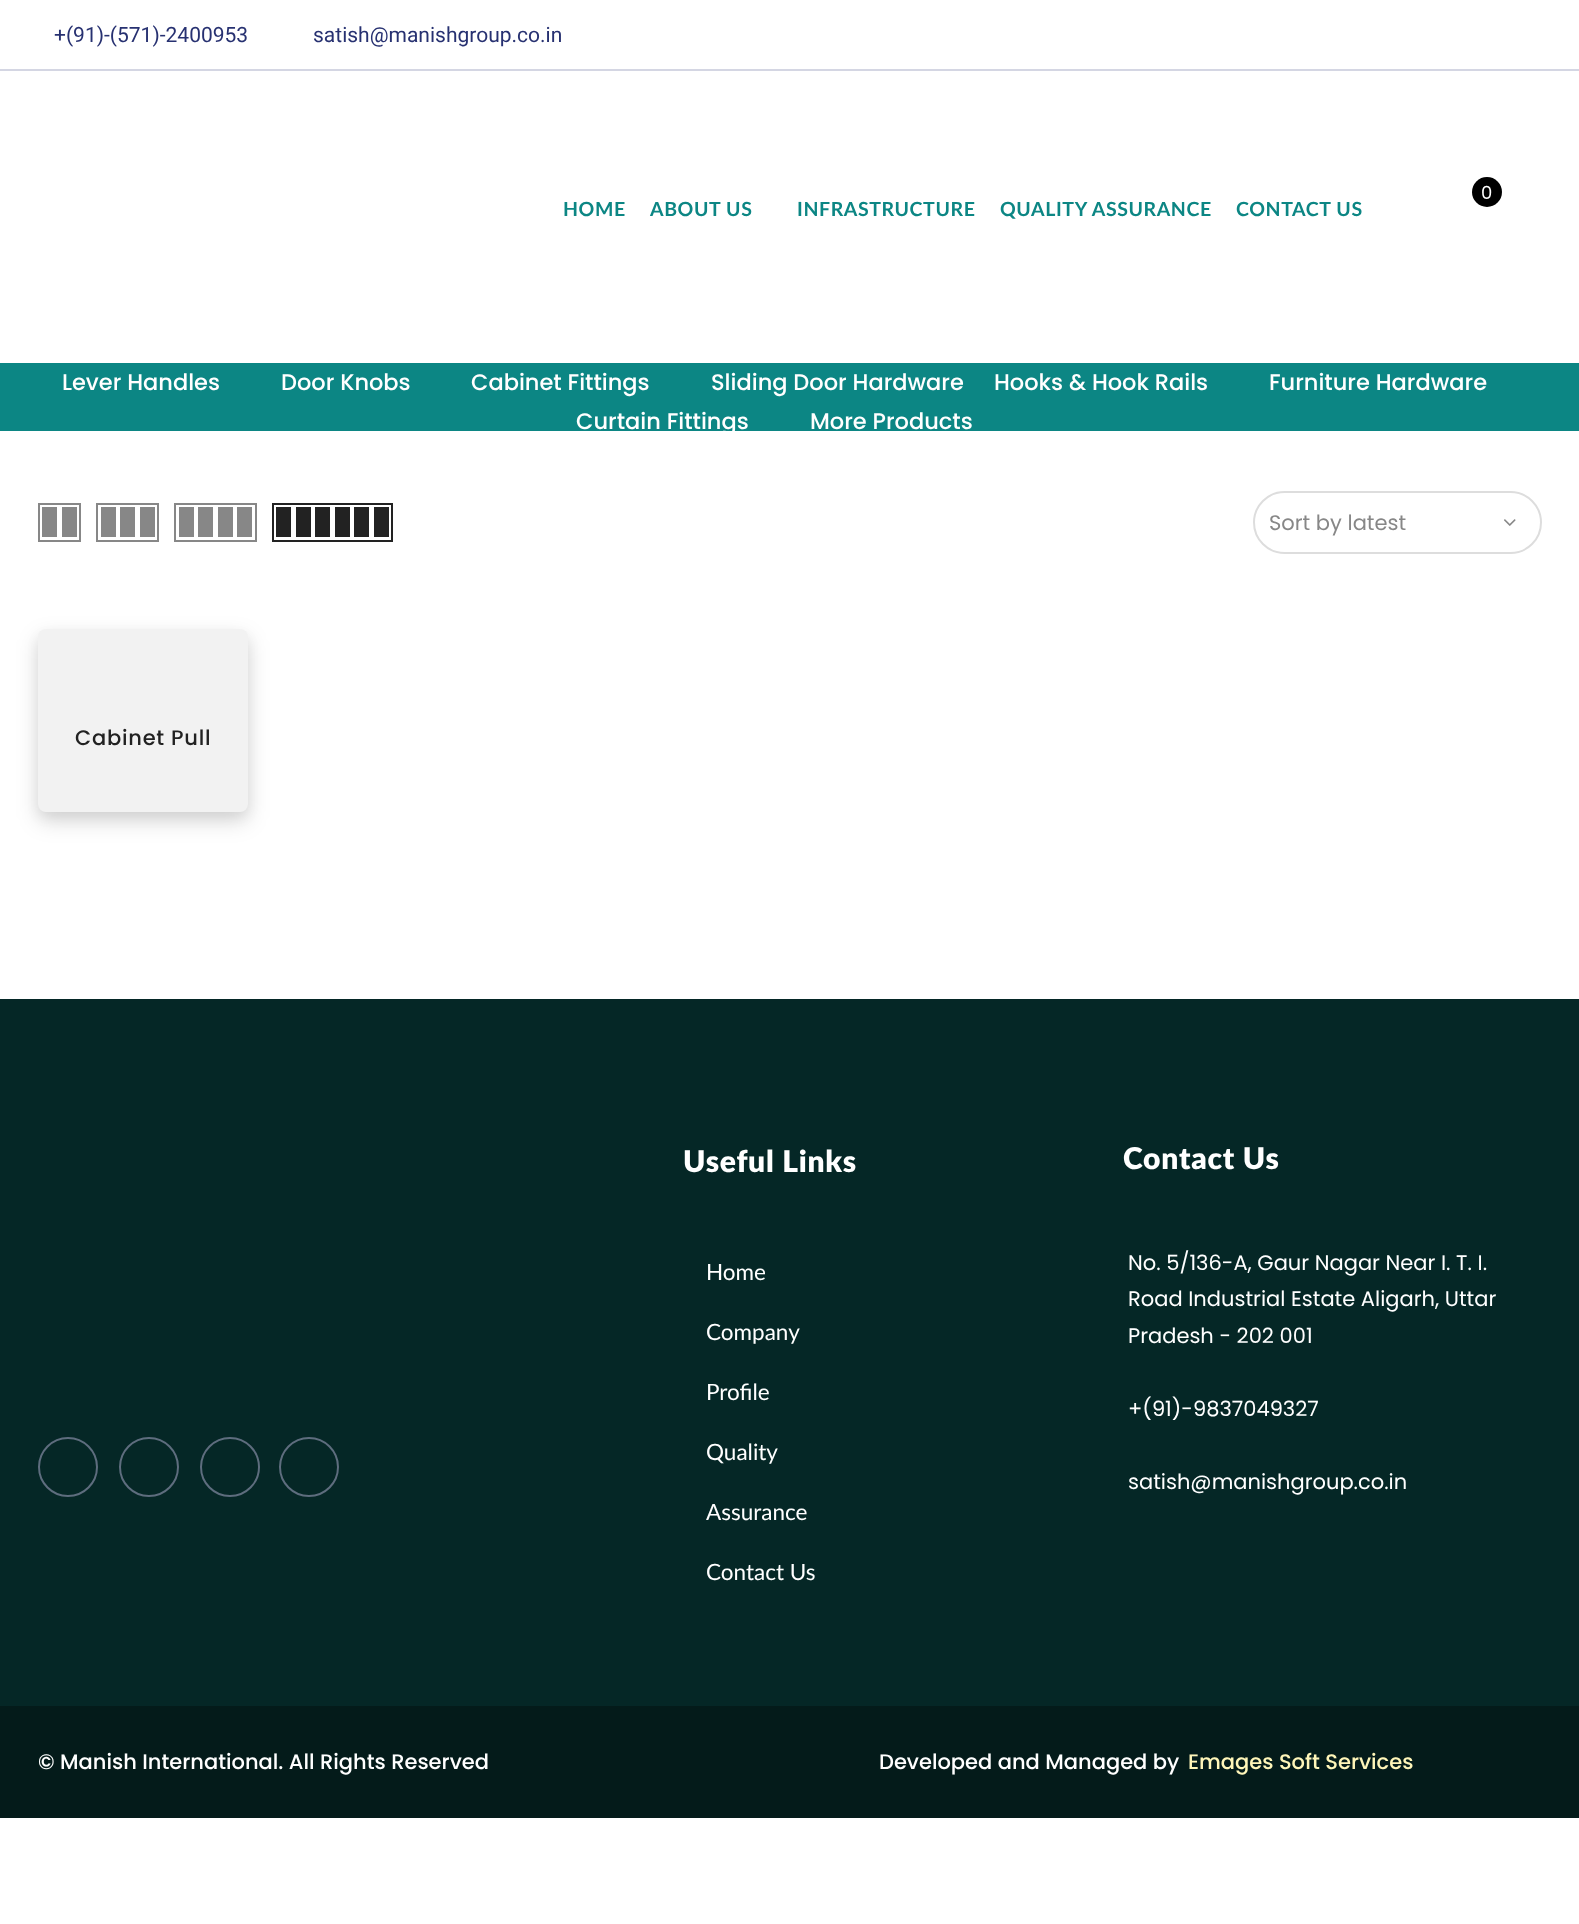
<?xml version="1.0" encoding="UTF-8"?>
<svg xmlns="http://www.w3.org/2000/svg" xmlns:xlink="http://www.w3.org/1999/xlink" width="1579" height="1924">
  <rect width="100%" height="100%" fill="#ffffff" />
  <rect y="69" width="1579" height="2" fill="#d4d6e3" />
  <circle cx="1487" cy="192" r="15" fill="#000000" />
  <rect y="363" width="1579" height="68" fill="#0c8684" />
  <rect x="39" y="504" width="41" height="37" fill="none" stroke="#878787" stroke-width="2" />
  <rect x="62" y="507" width="15" height="30" fill="#878787" />
  <rect x="42" y="507" width="15" height="30" fill="#878787" />
  <rect x="97" y="504" width="61" height="37" fill="none" stroke="#878787" stroke-width="2" />
  <rect x="140" y="507" width="15" height="30" fill="#878787" />
  <rect x="120" y="507" width="15" height="30" fill="#878787" />
  <rect x="101" y="507" width="15" height="30" fill="#878787" />
  <rect x="175" y="504" width="81" height="37" fill="none" stroke="#878787" stroke-width="2" />
  <rect x="237" y="507" width="15" height="30" fill="#878787" />
  <rect x="218" y="507" width="15" height="30" fill="#878787" />
  <rect x="198" y="507" width="15" height="30" fill="#878787" />
  <rect x="179" y="507" width="15" height="30" fill="#878787" />
  <rect x="273" y="504" width="119" height="37" fill="none" stroke="#222222" stroke-width="2" />
  <rect x="374" y="507" width="15" height="30" fill="#222222" />
  <rect x="354" y="507" width="15" height="30" fill="#222222" />
  <rect x="335" y="507" width="15" height="30" fill="#222222" />
  <rect x="315" y="507" width="15" height="30" fill="#222222" />
  <rect x="296" y="507" width="15" height="30" fill="#222222" />
  <rect x="276" y="507" width="15" height="30" fill="#222222" />
  <rect x="1254" y="492" width="287" height="61" rx="30.5" fill="none" stroke="#dddddd" stroke-width="2" />
  <image x="1504" y="519" width="12" height="7" xlink:href="image1.png" />
  <rect x="38" y="638" width="210" height="183" rx="8" fill="#000000" fill-opacity="0.15" filter="blur(11px)" />
  <rect x="38" y="635" width="210" height="183" rx="8" fill="#000000" fill-opacity="0.05" filter="blur(6px)" />
  <rect x="38" y="629" width="210" height="183" rx="8" fill="#f2f2f2" />
  <rect y="999" width="1579" height="707" fill="#052726" />
  <circle cx="68" cy="1467" r="29" fill="none" stroke="#5e6d7e" stroke-width="2" />
  <circle cx="149" cy="1467" r="29" fill="none" stroke="#5e6d7e" stroke-width="2" />
  <circle cx="230" cy="1467" r="29" fill="none" stroke="#5e6d7e" stroke-width="2" />
  <circle cx="309" cy="1467" r="29" fill="none" stroke="#5e6d7e" stroke-width="2" />
  <rect y="1706" width="1579" height="112" fill="#041b1a" />
  <text x="54" y="42" style="font-family: Roboto; font-size: 21px; fill: #273171">+(91)-(571)-2400953</text>
  <text x="313" y="42" style="font-family: Roboto; font-size: 21px; fill: #273171">satish@manishgroup.co.in</text>
  <text x="1481" y="199" style="font-family: Poppins; font-size: 18px; fill: #ffffff">0</text>
  <text x="563" y="216" style="font-family: Lato; font-size: 19.5px; font-weight: bold; letter-spacing: 0.6px; fill: #0c8684">HOME</text>
  <text x="650" y="216" style="font-family: Lato; font-size: 19.5px; font-weight: bold; letter-spacing: 0.6px; fill: #0c8684">ABOUT US</text>
  <text x="797" y="216" style="font-family: Lato; font-size: 19.5px; font-weight: bold; letter-spacing: 0.6px; fill: #0c8684">INFRASTRUCTURE</text>
  <text x="1000" y="216" style="font-family: Lato; font-size: 19.5px; font-weight: bold; letter-spacing: 0.6px; fill: #0c8684">QUALITY ASSURANCE</text>
  <text x="1236" y="216" style="font-family: Lato; font-size: 19.5px; font-weight: bold; letter-spacing: 0.6px; fill: #0c8684">CONTACT US</text>
  <text x="62" y="390" style="font-family: Poppins; font-size: 22.5px; font-weight: 500; fill: #ffffff">Lever Handles</text>
  <text x="281" y="390" style="font-family: Poppins; font-size: 22.5px; font-weight: 500; fill: #ffffff">Door Knobs</text>
  <text x="471" y="390" style="font-family: Poppins; font-size: 22.5px; font-weight: 500; fill: #ffffff">Cabinet Fittings</text>
  <text x="711" y="390" style="font-family: Poppins; font-size: 22.5px; font-weight: 500; fill: #ffffff">Sliding Door Hardware</text>
  <text x="994" y="390" style="font-family: Poppins; font-size: 22.5px; font-weight: 500; fill: #ffffff">Hooks &amp; Hook Rails</text>
  <text x="1269" y="390" style="font-family: Poppins; font-size: 22.5px; font-weight: 500; fill: #ffffff">Furniture Hardware</text>
  <text x="576" y="429" style="font-family: Poppins; font-size: 22.5px; font-weight: 500; fill: #ffffff">Curtain Fittings</text>
  <text x="810" y="429" style="font-family: Poppins; font-size: 22.5px; font-weight: 500; fill: #ffffff">More Products</text>
  <text x="1269" y="530" style="font-family: Poppins; font-size: 21px; fill: #878787">Sort by latest</text>
  <text x="75" y="745" style="font-family: Poppins; font-size: 21px; font-weight: 500; letter-spacing: 0.75px; fill: #222222">Cabinet Pull</text>
  <text x="683" y="1172" style="font-family: Lato; font-size: 30px; font-weight: 800; letter-spacing: 0.75px; fill: #ffffff">Useful Links</text>
  <text x="706" y="1280" style="font-family: Lato; font-size: 22.5px; fill: #ffffff">Home</text>
  <text x="706" y="1340" style="font-family: Lato; font-size: 22.5px; fill: #ffffff">Company</text>
  <text x="706" y="1400" style="font-family: Lato; font-size: 22.5px; fill: #ffffff">Profile</text>
  <text x="706" y="1460" style="font-family: Lato; font-size: 22.5px; fill: #ffffff">Quality</text>
  <text x="706" y="1520" style="font-family: Lato; font-size: 22.5px; fill: #ffffff">Assurance</text>
  <text x="706" y="1580" style="font-family: Lato; font-size: 22.5px; fill: #ffffff">Contact Us</text>
  <text x="1123" y="1169" style="font-family: Lato; font-size: 30px; font-weight: 800; letter-spacing: 0.75px; fill: #ffffff">Contact Us</text>
  <text x="1128" y="1270" style="font-family: Poppins; font-size: 21px; fill: #ffffff">No. 5/136-A, Gaur Nagar Near I. T. I.</text>
  <text x="1128" y="1306" style="font-family: Poppins; font-size: 21px; fill: #ffffff">Road Industrial Estate Aligarh, Uttar</text>
  <text x="1128" y="1343" style="font-family: Poppins; font-size: 21px; fill: #ffffff">Pradesh - 202 001</text>
  <text x="1128" y="1416" style="font-family: Poppins; font-size: 21px; fill: #ffffff">+(91)-9837049327</text>
  <text x="1128" y="1489" style="font-family: Poppins; font-size: 21px; fill: #ffffff">satish@manishgroup.co.in</text>
  <text x="38" y="1769" style="font-family: Poppins; font-size: 21px; font-weight: 500; fill: #ffffff">© Manish International. All Rights Reserved</text>
  <text x="879" y="1769" style="font-family: Poppins; font-size: 21px; font-weight: 500; fill: #ffffff">Developed and Managed by</text>
  <text x="1188" y="1769" style="font-family: Poppins; font-size: 21px; font-weight: 500; fill: #fff6b9">Emages Soft Services</text>
</svg>
